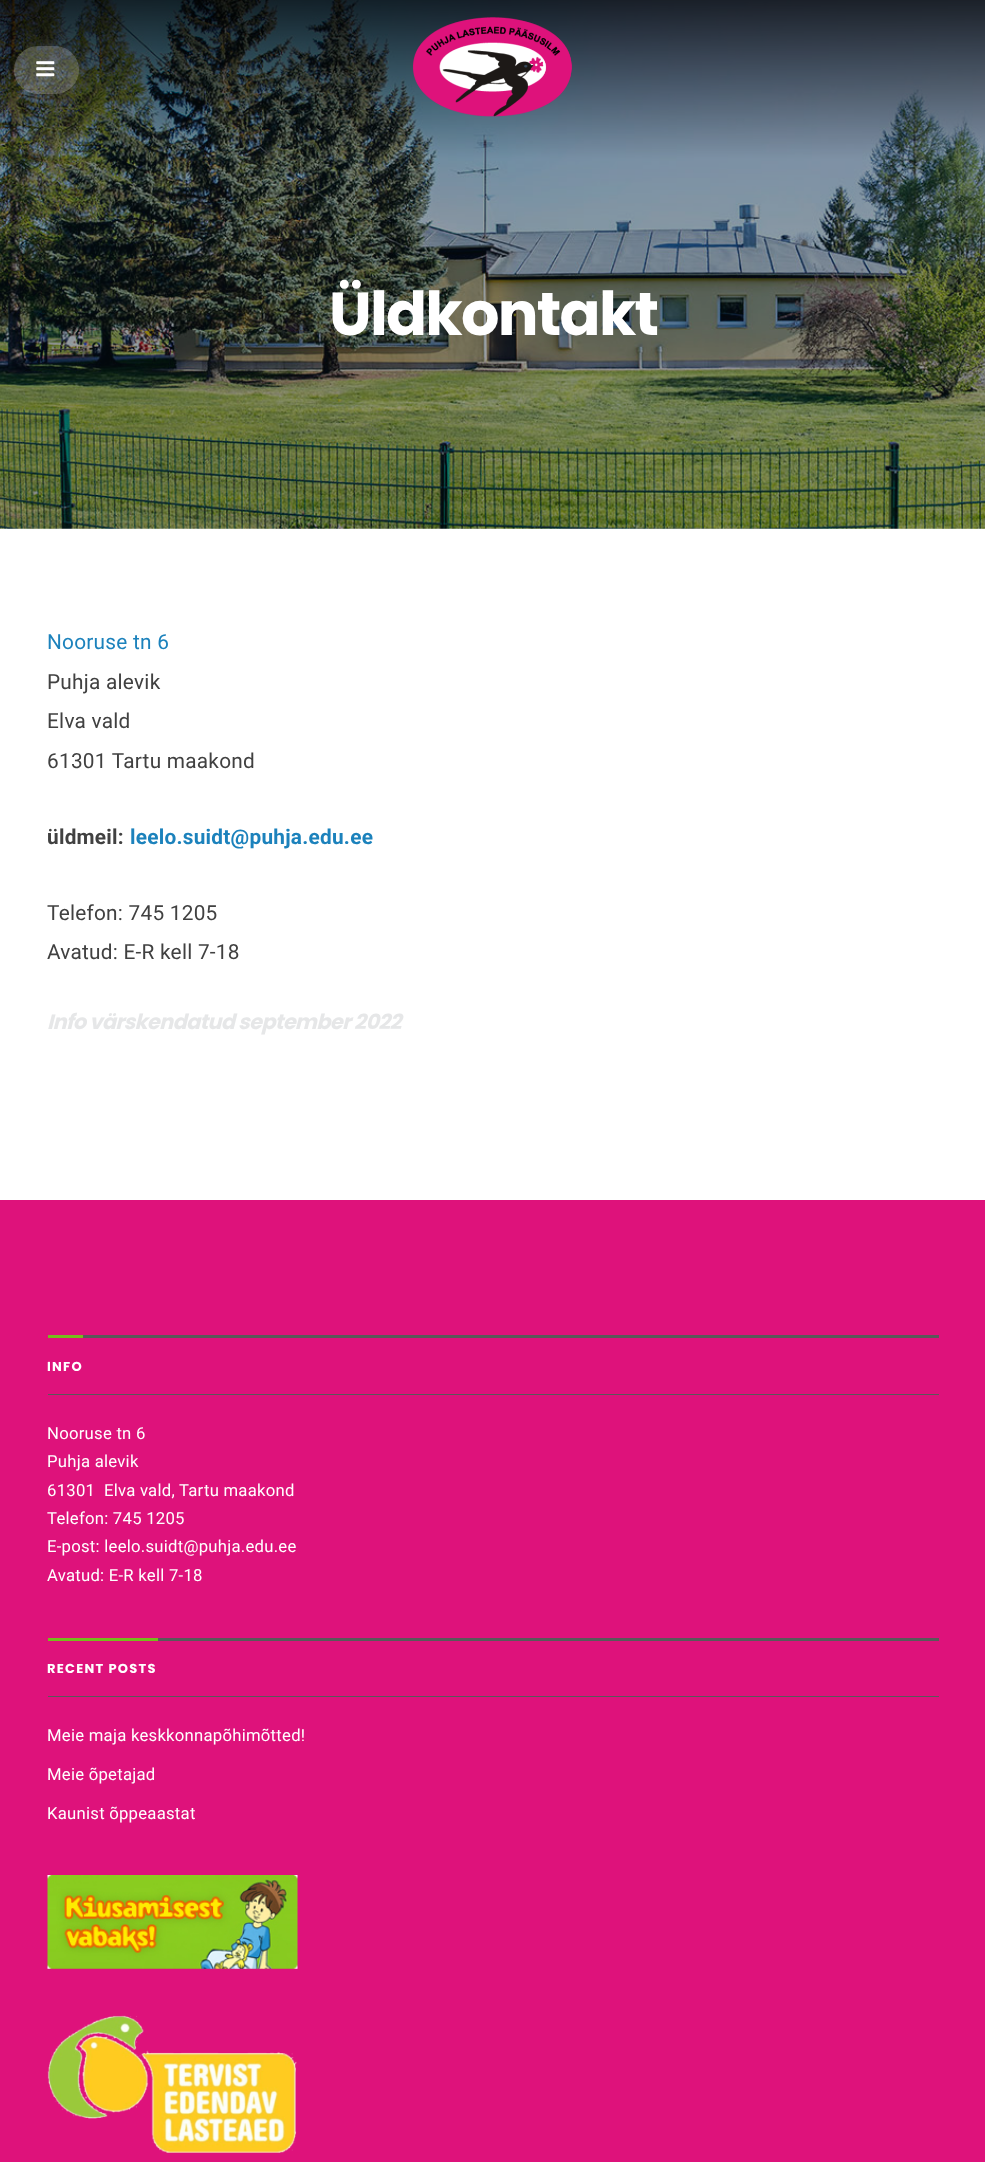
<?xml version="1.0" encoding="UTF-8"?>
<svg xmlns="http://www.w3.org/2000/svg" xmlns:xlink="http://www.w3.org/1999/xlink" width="985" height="2162">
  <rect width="100%" height="100%" fill="#ffffff" />
  <image x="0" y="0" width="985" height="529" xlink:href="image3.png" />
  <rect x="14" y="46" width="65" height="48" rx="24" fill="#ffffff" fill-opacity="0.2" />
  <image x="36" y="61" width="19" height="16" xlink:href="image1.png" />
  <image x="413" y="17" width="159" height="100" xlink:href="image2.png" />
  <rect y="1200" width="985" height="962" fill="#de127b" />
  <rect x="83" y="1335" width="856" height="3" fill="#595959" />
  <rect x="48" y="1394" width="891" height="1" fill="#595959" />
  <rect x="48" y="1335" width="35" height="3" fill="#76bc1c" />
  <rect x="158" y="1638" width="781" height="3" fill="#595959" />
  <rect x="48" y="1696" width="891" height="1" fill="#595959" />
  <rect x="48" y="1638" width="110" height="3" fill="#76bc1c" />
  <image x="47" y="1875" width="251" height="94" xlink:href="image4.png" />
  <image x="47" y="2015" width="250" height="138" xlink:href="image5.png" />
  <text x="329" y="335" style="font-family: Poppins; font-size: 60.5px; font-weight: bold; letter-spacing: -1.75px; fill: #ffffff">Üldkontakt</text>
  <text x="47" y="649" style="font-family: Roboto; font-size: 20.8px; letter-spacing: 0.25px; fill: #1c82bc">Nooruse tn 6</text>
  <text x="47" y="689" style="font-family: Roboto; font-size: 20.8px; letter-spacing: 0.25px; fill: #414141">Puhja alevik</text>
  <text x="47" y="728" style="font-family: Roboto; font-size: 20.8px; letter-spacing: 0.25px; fill: #414141">Elva vald</text>
  <text x="47" y="768" style="font-family: Roboto; font-size: 20.8px; letter-spacing: 0.25px; fill: #414141">61301 Tartu maakond</text>
  <text x="47" y="844" style="font-family: Roboto; font-size: 20.8px; font-weight: bold; letter-spacing: 0.25px; fill: #414141">üldmeil:</text>
  <text x="130" y="844" style="font-family: Roboto; font-size: 20.8px; font-weight: bold; letter-spacing: 0.25px; fill: #1c82bc">leelo.suidt@puhja.edu.ee</text>
  <text x="47" y="920" style="font-family: Roboto; font-size: 20.8px; letter-spacing: 0.25px; fill: #414141">Telefon: 745 1205</text>
  <text x="47" y="959" style="font-family: Roboto; font-size: 20.8px; letter-spacing: 0.25px; fill: #414141">Avatud: E-R kell 7-18</text>
  <text x="47" y="1029" style="font-family: Poppins; font-size: 20.8px; font-weight: bold; font-style: italic; letter-spacing: -0.6px; fill: #e6e7e8">Info värskendatud september 2022</text>
  <text x="47" y="1371" style="font-family: Poppins; font-size: 13px; font-weight: bold; letter-spacing: 1.25px; fill: #ffffff">INFO</text>
  <text x="47" y="1439" style="font-family: Roboto; font-size: 16.7px; letter-spacing: 0.25px; fill: #ffffff">Nooruse tn 6</text>
  <text x="47" y="1467" style="font-family: Roboto; font-size: 16.7px; letter-spacing: 0.25px; fill: #ffffff">Puhja alevik</text>
  <text x="47" y="1496" style="font-family: Roboto; font-size: 16.7px; letter-spacing: 0.25px; fill: #ffffff" xml:space="preserve">61301  Elva vald, Tartu maakond</text>
  <text x="47" y="1524" style="font-family: Roboto; font-size: 16.7px; letter-spacing: 0.25px; fill: #ffffff">Telefon: 745 1205</text>
  <text x="47" y="1552" style="font-family: Roboto; font-size: 16.7px; letter-spacing: 0.25px; fill: #ffffff">E-post: leelo.suidt@puhja.edu.ee</text>
  <text x="47" y="1581" style="font-family: Roboto; font-size: 16.7px; letter-spacing: 0.25px; fill: #ffffff">Avatud: E-R kell 7-18</text>
  <text x="47" y="1673" style="font-family: Poppins; font-size: 13px; font-weight: bold; letter-spacing: 1.25px; fill: #ffffff">RECENT POSTS</text>
  <text x="47" y="1741" style="font-family: Roboto; font-size: 16.7px; letter-spacing: 0.25px; fill: #ffffff">Meie maja keskkonnapõhimõtted!</text>
  <text x="47" y="1780" style="font-family: Roboto; font-size: 16.7px; letter-spacing: 0.25px; fill: #ffffff">Meie õpetajad</text>
  <text x="47" y="1819" style="font-family: Roboto; font-size: 16.7px; letter-spacing: 0.25px; fill: #ffffff">Kaunist õppeaastat</text>
</svg>
